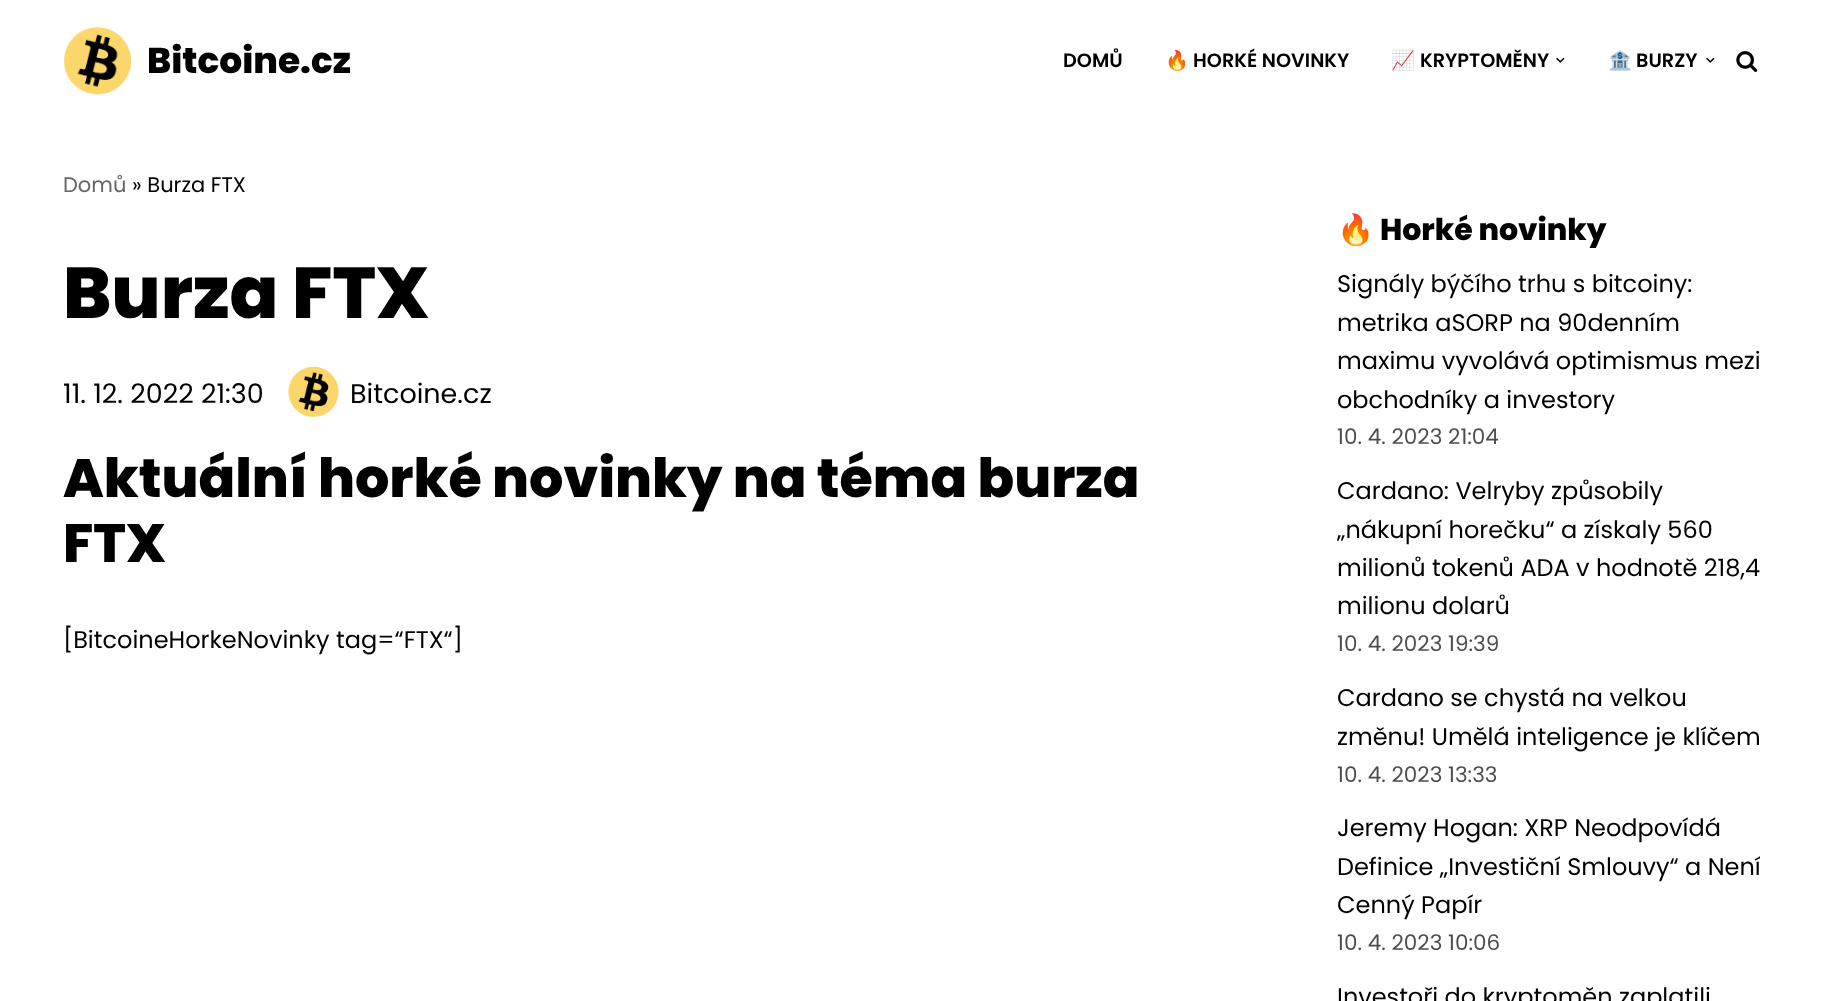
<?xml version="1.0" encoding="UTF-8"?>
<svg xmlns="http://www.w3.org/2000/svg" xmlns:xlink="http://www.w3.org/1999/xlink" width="1835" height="1001">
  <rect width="100%" height="100%" fill="#ffffff" />
  <image x="64" y="27" width="68" height="68" xlink:href="image1.png" />
  <image x="1556" y="57" width="9" height="6" xlink:href="image2.png" />
  <image x="1706" y="57" width="9" height="6" xlink:href="image2.png" />
  <image x="1736" y="51" width="22" height="21" xlink:href="image3.png" />
  <image x="288" y="366" width="51" height="52" xlink:href="image4.png" />
  <text x="147" y="73" style="font-family: Poppins; font-size: 36px; font-weight: 800; fill: #000000">Bitcoine.cz</text>
  <text x="1063" y="67" style="font-family: Poppins; font-size: 19.25px; font-weight: 600; fill: #000000">DOMŮ</text>
  <text x="1165" y="67" style="font-family: Noto Color Emoji; font-size: 19.25px; font-weight: bold; fill: #000000">🔥</text>
  <text x="1193" y="67" style="font-family: Poppins; font-size: 19.25px; font-weight: 600; fill: #000000">HORKÉ NOVINKY</text>
  <text x="1391" y="67" style="font-family: Noto Color Emoji; font-size: 19.25px; font-weight: bold; fill: #000000">📈</text>
  <text x="1420" y="67" style="font-family: Poppins; font-size: 19.25px; font-weight: 600; fill: #000000">KRYPTOMĚNY</text>
  <text x="1608" y="67" style="font-family: Noto Color Emoji; font-size: 19.25px; font-weight: bold; fill: #000000">🏦</text>
  <text x="1636" y="67" style="font-family: Poppins; font-size: 19.25px; font-weight: 600; fill: #000000">BURZY</text>
  <text x="63" y="192" style="font-family: Poppins; font-size: 21px; fill: #676767">Domů</text>
  <text x="132" y="192" style="font-family: Poppins; font-size: 21px; fill: #000000">» Burza FTX</text>
  <text x="63" y="318" style="font-family: Poppins; font-size: 72px; font-weight: 800; fill: #000000">Burza FTX</text>
  <text x="63" y="403" style="font-family: Poppins; font-size: 27px; fill: #000000">11. 12. 2022 21:30</text>
  <text x="350" y="403" style="font-family: Poppins; font-size: 27px; fill: #000000">Bitcoine.cz</text>
  <text x="63" y="497" style="font-family: Poppins; font-size: 54px; font-weight: 800; fill: #000000">Aktuální horké novinky na téma burza</text>
  <text x="63" y="562" style="font-family: Poppins; font-size: 54px; font-weight: 800; fill: #000000">FTX</text>
  <text x="63" y="648" style="font-family: Poppins; font-size: 24px; fill: #000000">[BitcoineHorkeNovinky tag=“FTX“]</text>
  <text x="1337" y="240" style="font-family: Noto Color Emoji; font-size: 30px; font-weight: bold; fill: #000000">🔥</text>
  <text x="1380" y="240" style="font-family: Poppins; font-size: 30px; font-weight: 800; fill: #000000">Horké novinky</text>
  <text x="1337" y="292" style="font-family: Poppins; font-size: 24px; fill: #000000">Signály býčího trhu s bitcoiny:</text>
  <text x="1337" y="331" style="font-family: Poppins; font-size: 24px; fill: #000000">metrika aSORP na 90denním</text>
  <text x="1337" y="369" style="font-family: Poppins; font-size: 24px; fill: #000000">maximu vyvolává optimismus mezi</text>
  <text x="1337" y="408" style="font-family: Poppins; font-size: 24px; fill: #000000">obchodníky a investory</text>
  <text x="1337" y="444" style="font-family: Poppins; font-size: 21.5px; fill: #4d4d4d">10. 4. 2023 21:04</text>
  <text x="1337" y="499" style="font-family: Poppins; font-size: 24px; fill: #000000">Cardano: Velryby způsobily</text>
  <text x="1337" y="538" style="font-family: Poppins; font-size: 24px; fill: #000000">„nákupní horečku“ a získaly 560</text>
  <text x="1337" y="576" style="font-family: Poppins; font-size: 24px; fill: #000000">milionů tokenů ADA v hodnotě 218,4</text>
  <text x="1337" y="614" style="font-family: Poppins; font-size: 24px; fill: #000000">milionu dolarů</text>
  <text x="1337" y="651" style="font-family: Poppins; font-size: 21.5px; fill: #4d4d4d">10. 4. 2023 19:39</text>
  <text x="1337" y="706" style="font-family: Poppins; font-size: 24px; fill: #000000">Cardano se chystá na velkou</text>
  <text x="1337" y="745" style="font-family: Poppins; font-size: 24px; fill: #000000">změnu! Umělá inteligence je klíčem</text>
  <text x="1337" y="782" style="font-family: Poppins; font-size: 21.5px; fill: #4d4d4d">10. 4. 2023 13:33</text>
  <text x="1337" y="836" style="font-family: Poppins; font-size: 24px; fill: #000000">Jeremy Hogan: XRP Neodpovídá</text>
  <text x="1337" y="875" style="font-family: Poppins; font-size: 24px; fill: #000000">Definice „Investiční Smlouvy“ a Není</text>
  <text x="1337" y="913" style="font-family: Poppins; font-size: 24px; fill: #000000">Cenný Papír</text>
  <text x="1337" y="950" style="font-family: Poppins; font-size: 21.5px; fill: #4d4d4d">10. 4. 2023 10:06</text>
  <text x="1337" y="1005" style="font-family: Poppins; font-size: 24px; fill: #000000">Investoři do kryptoměn zaplatili</text>
</svg>
